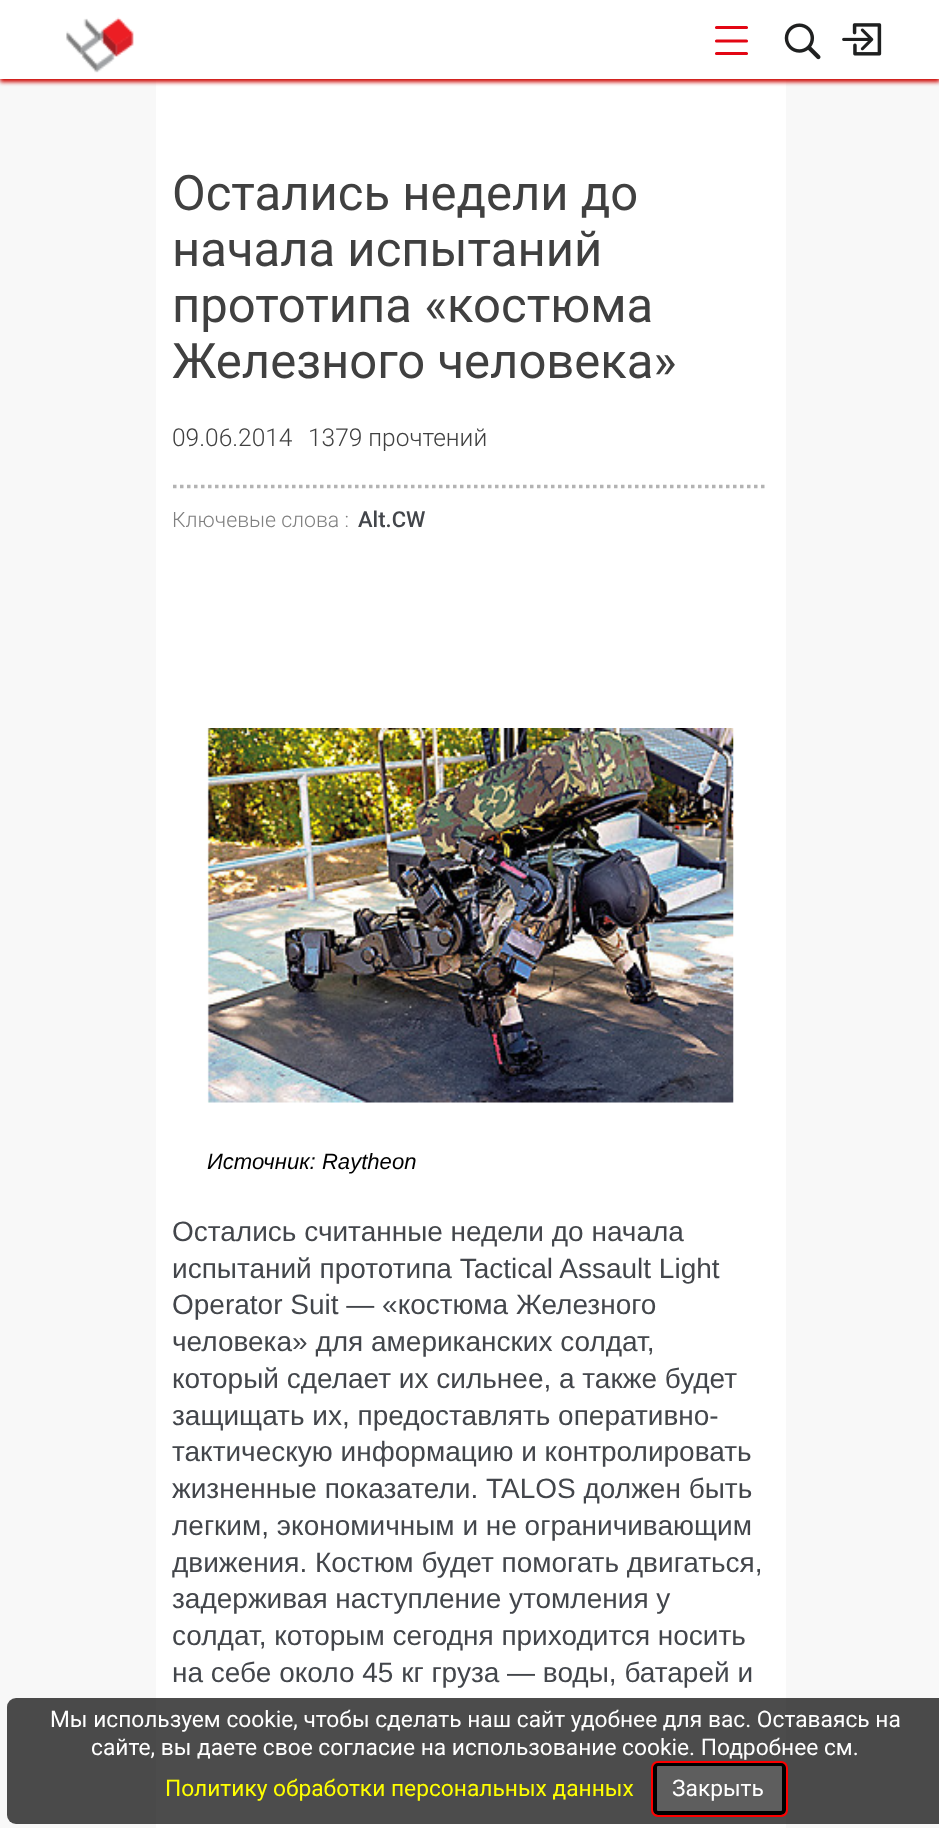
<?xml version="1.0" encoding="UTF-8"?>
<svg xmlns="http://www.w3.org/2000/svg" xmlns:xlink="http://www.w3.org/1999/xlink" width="939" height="1828">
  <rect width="100%" height="100%" fill="#f8f8f8" />
  <rect x="156" y="79" width="630" height="1749" fill="#ffffff" />
  <rect y="4" width="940" height="78" fill="#cd0400" filter="blur(2px)" />
  <rect width="939" height="79" fill="#ffffff" />
  <image x="66" y="17" width="68" height="56" xlink:href="image1.png" />
  <path d="M 716.5 27.5 h 30 m -30 13.5 h 30 m -30 12.5 h 30" fill="none" stroke="#e30613" stroke-width="3.1" stroke-linecap="round" />
  <image x="784" y="23" width="37" height="37" xlink:href="image2.png" />
  <image x="842" y="23" width="40" height="33" xlink:href="image3.png" />
  <path d="M 173 486.5 h 595" fill="none" stroke="#b3b3b3" stroke-width="3.5" stroke-dasharray="3.5 3.5" />
  <image x="207" y="728" width="527" height="375" xlink:href="image4.png" />
  <rect x="7" y="1698" width="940" height="126" rx="9" fill="#000000" fill-opacity="0.7" />
  <rect x="655" y="1764" width="129" height="49" rx="3" fill="#ffffff" fill-opacity="0.1" stroke="#000000" stroke-width="4" />
  <rect x="652" y="1762" width="135" height="54" rx="6" fill="none" stroke="#ff0000" stroke-width="2" />
  <text x="172" y="210" style="font-family: Roboto; font-size: 49px; fill: #404040">Остались недели до</text>
  <text x="172" y="266" style="font-family: Roboto; font-size: 49px; fill: #404040">начала испытаний</text>
  <text x="172" y="322" style="font-family: Roboto; font-size: 49px; fill: #404040">прототипа «костюма</text>
  <text x="172" y="378" style="font-family: Roboto; font-size: 49px; fill: #404040">Железного человека»</text>
  <text x="172" y="446" style="font-family: Roboto; font-size: 24.5px; font-weight: 300; fill: #404040">09.06.2014</text>
  <text x="308" y="446" style="font-family: Roboto; font-size: 24.5px; font-weight: 300; fill: #404040">1379 прочтений</text>
  <text x="172" y="527" style="font-family: Roboto; font-size: 21.25px; font-weight: 300; fill: #808080">Ключевые слова :</text>
  <text x="358" y="527" style="font-family: Roboto; font-size: 22px; font-weight: 500; fill: #43464b">Alt.CW</text>
  <text x="207" y="1169" style="font-family: Liberation Sans; font-size: 22.1px; font-style: italic; fill: #000000">Источник: Raytheon</text>
  <text x="172" y="1241" style="font-family: Liberation Sans; font-size: 28px; fill: #43464b">Остались считанные недели до начала</text>
  <text x="172" y="1278" style="font-family: Liberation Sans; font-size: 28px; fill: #43464b">испытаний прототипа Tactical Assault Light</text>
  <text x="172" y="1314" style="font-family: Liberation Sans; font-size: 28px; fill: #43464b">Operator Suit — «костюма Железного</text>
  <text x="172" y="1351" style="font-family: Liberation Sans; font-size: 28px; fill: #43464b">человека» для американских солдат,</text>
  <text x="172" y="1388" style="font-family: Liberation Sans; font-size: 28px; fill: #43464b">который сделает их сильнее, а также будет</text>
  <text x="172" y="1425" style="font-family: Liberation Sans; font-size: 28px; fill: #43464b">защищать их, предоставлять оперативно-</text>
  <text x="172" y="1461" style="font-family: Liberation Sans; font-size: 28px; fill: #43464b">тактическую информацию и контролировать</text>
  <text x="172" y="1498" style="font-family: Liberation Sans; font-size: 28px; fill: #43464b">жизненные показатели. TALOS должен быть</text>
  <text x="172" y="1535" style="font-family: Liberation Sans; font-size: 28px; fill: #43464b">легким, экономичным и не ограничивающим</text>
  <text x="172" y="1572" style="font-family: Liberation Sans; font-size: 28px; fill: #43464b">движения. Костюм будет помогать двигаться,</text>
  <text x="172" y="1608" style="font-family: Liberation Sans; font-size: 28px; fill: #43464b">задерживая наступление утомления у</text>
  <text x="172" y="1645" style="font-family: Liberation Sans; font-size: 28px; fill: #43464b">солдат, которым сегодня приходится носить</text>
  <text x="172" y="1682" style="font-family: Liberation Sans; font-size: 28px; fill: #43464b">на себе около 45 кг груза — воды, батарей и</text>
  <text x="50" y="1727" style="font-family: Roboto; font-size: 22.75px; fill: #ffffff">Мы используем cookie, чтобы сделать наш сайт удобнее для вас. Оставаясь на</text>
  <text x="91" y="1755" style="font-family: Roboto; font-size: 22.75px; fill: #ffffff">сайте, вы даете свое согласие на использование cookie. Подробнее см.</text>
  <text x="165" y="1796" style="font-family: Roboto; font-size: 22.75px; fill: #ffff00">Политику обработки персональных данных</text>
  <text x="672" y="1796" style="font-family: Roboto; font-size: 22.75px; fill: #ffffff">Закрыть</text>
</svg>
